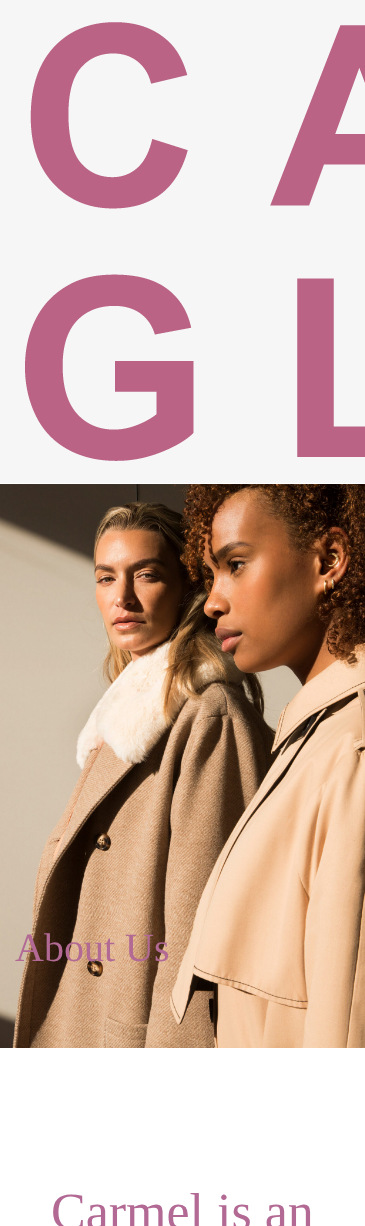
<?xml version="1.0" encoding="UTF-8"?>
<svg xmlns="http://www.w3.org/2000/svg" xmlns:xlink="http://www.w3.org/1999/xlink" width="365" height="1226">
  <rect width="100%" height="100%" fill="#ffffff" />
  <rect width="365" height="483" fill="#f6f6f6" />
  <image x="25" y="22" width="340" height="439" xlink:href="image1.png" />
  <image x="0" y="484" width="365" height="564" xlink:href="image2.png" />
  <text x="15" y="961" style="font-family: Liberation Serif; font-size: 40px; fill: #b26994">About Us</text>
  <text x="51" y="1229" style="font-family: Liberation Serif; font-size: 52px; fill: #b26994">Carmel is an</text>
</svg>
